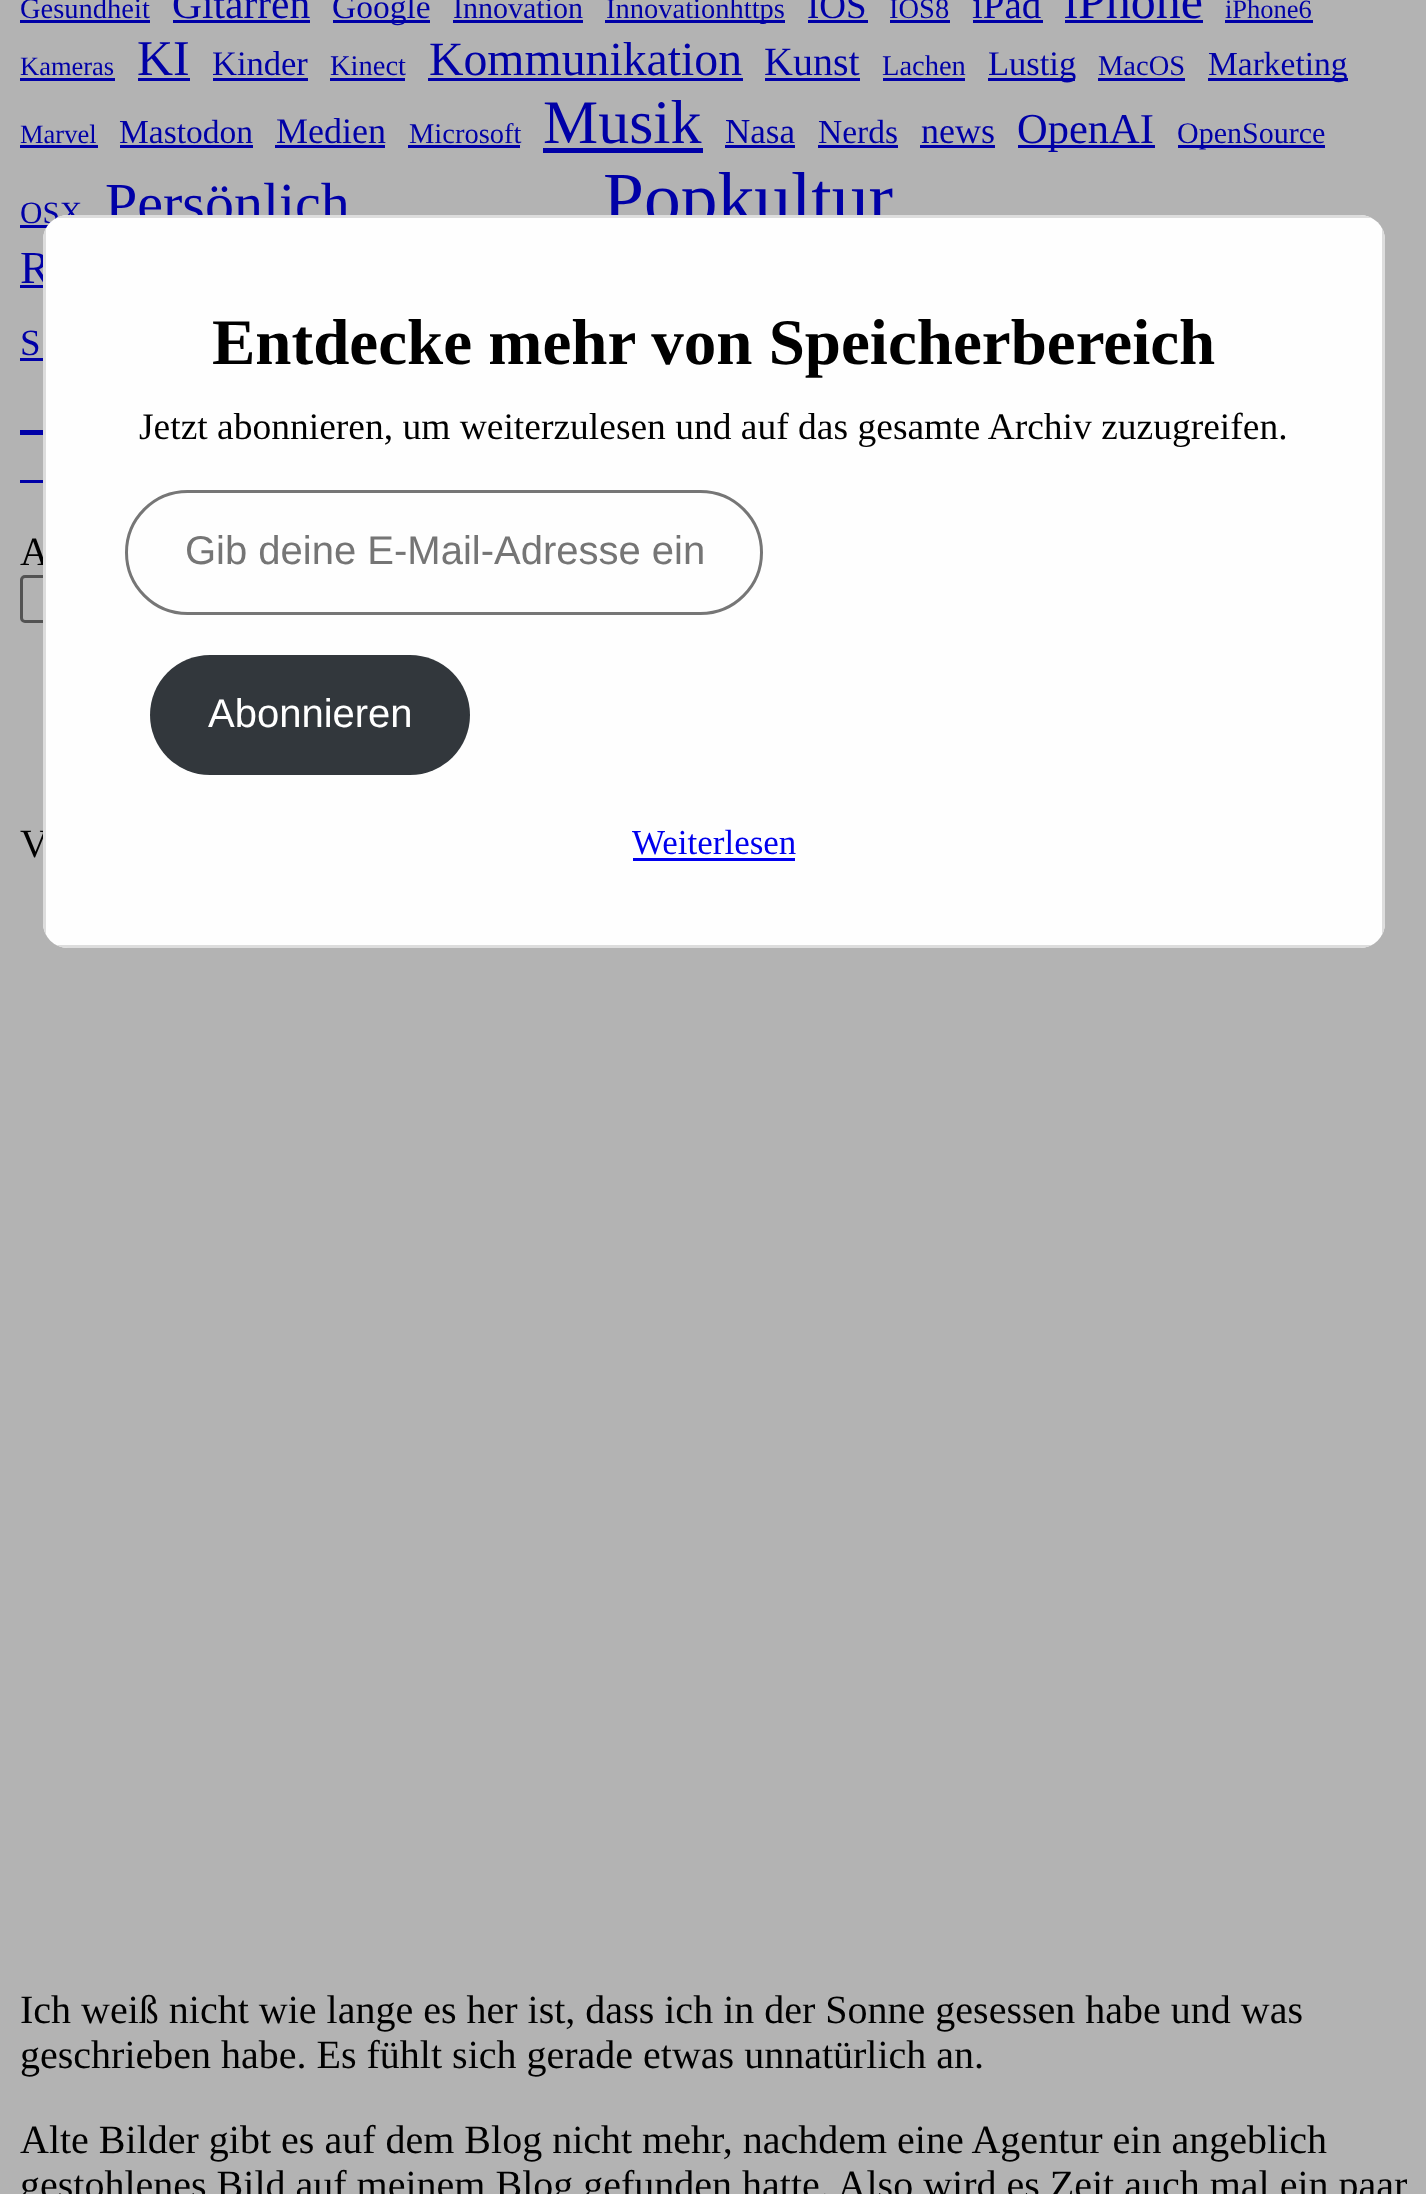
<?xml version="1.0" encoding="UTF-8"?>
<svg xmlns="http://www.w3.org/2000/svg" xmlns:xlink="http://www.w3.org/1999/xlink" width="1426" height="2194">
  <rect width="100%" height="100%" fill="#b3b3b3" />
  <rect x="20" y="20" width="130" height="3" fill="#0000a7" />
  <rect x="173" y="20" width="137" height="3" fill="#0000a7" />
  <rect x="333" y="20" width="97" height="3" fill="#0000a7" />
  <rect x="453" y="20" width="130" height="3" fill="#0000a7" />
  <rect x="605" y="20" width="180" height="3" fill="#0000a7" />
  <rect x="808" y="20" width="60" height="3" fill="#0000a7" />
  <rect x="890" y="20" width="60" height="3" fill="#0000a7" />
  <rect x="973" y="20" width="70" height="3" fill="#0000a7" />
  <rect x="1065" y="20" width="138" height="3" fill="#0000a7" />
  <rect x="1225" y="20" width="88" height="3" fill="#0000a7" />
  <rect x="20" y="78" width="95" height="3" fill="#0000a7" />
  <rect x="138" y="78" width="52" height="3" fill="#0000a7" />
  <rect x="213" y="78" width="95" height="3" fill="#0000a7" />
  <rect x="330" y="78" width="75" height="3" fill="#0000a7" />
  <rect x="428" y="78" width="315" height="3" fill="#0000a7" />
  <rect x="765" y="78" width="95" height="3" fill="#0000a7" />
  <rect x="883" y="78" width="82" height="3" fill="#0000a7" />
  <rect x="988" y="78" width="87" height="3" fill="#0000a7" />
  <rect x="1098" y="78" width="87" height="3" fill="#0000a7" />
  <rect x="1208" y="78" width="140" height="3" fill="#0000a7" />
  <rect x="20" y="145" width="78" height="3" fill="#0000a7" />
  <rect x="120" y="145" width="133" height="3" fill="#0000a7" />
  <rect x="275" y="145" width="110" height="3" fill="#0000a7" />
  <rect x="408" y="145" width="112" height="3" fill="#0000a7" />
  <rect x="543" y="148" width="160" height="5" fill="#0000a7" />
  <rect x="725" y="145" width="70" height="3" fill="#0000a7" />
  <rect x="818" y="145" width="80" height="3" fill="#0000a7" />
  <rect x="920" y="145" width="75" height="3" fill="#0000a7" />
  <rect x="1018" y="145" width="137" height="3" fill="#0000a7" />
  <rect x="1178" y="145" width="147" height="3" fill="#0000a7" />
  <rect x="20" y="225" width="28" height="3" fill="#0000a7" />
  <rect x="20" y="285" width="23" height="3" fill="#0000a7" />
  <rect x="20" y="358" width="23" height="3" fill="#0000a7" />
  <rect x="20" y="430" width="23" height="5" fill="#0000a7" />
  <rect x="20" y="480" width="23" height="3" fill="#0000a7" />
  <rect x="21.5" y="576.5" width="377" height="45" rx="3.5" fill="none" stroke="#535353" stroke-width="3" />
  <text x="20" y="18" style="font-family: Liberation Serif; font-size: 28.5px; fill: #0000a7">Gesundheit</text>
  <text x="172" y="18" style="font-family: Liberation Serif; font-size: 41.5px; fill: #0000a7">Gitarren</text>
  <text x="332" y="18" style="font-family: Liberation Serif; font-size: 33.5px; fill: #0000a7">Google</text>
  <text x="453" y="18" style="font-family: Liberation Serif; font-size: 30px; fill: #0000a7">Innovation</text>
  <text x="606" y="18" style="font-family: Liberation Serif; font-size: 28.5px; fill: #0000a7">Innovationhttps</text>
  <text x="807" y="18" style="font-family: Liberation Serif; font-size: 37px; fill: #0000a7">IOS</text>
  <text x="889" y="18" style="font-family: Liberation Serif; font-size: 28.5px; fill: #0000a7">IOS8</text>
  <text x="972" y="18" style="font-family: Liberation Serif; font-size: 39px; fill: #0000a7">iPad</text>
  <text x="1064" y="18" style="font-family: Liberation Serif; font-size: 50px; fill: #0000a7">iPhone</text>
  <text x="1225" y="18" style="font-family: Liberation Serif; font-size: 26.5px; fill: #0000a7">iPhone6</text>
  <text x="20" y="75" style="font-family: Liberation Serif; font-size: 26.5px; fill: #0000a7">Kameras</text>
  <text x="137" y="75" style="font-family: Liberation Serif; font-size: 50px; fill: #0000a7">KI</text>
  <text x="212" y="75" style="font-family: Liberation Serif; font-size: 34.5px; fill: #0000a7">Kinder</text>
  <text x="330" y="75" style="font-family: Liberation Serif; font-size: 28.5px; fill: #0000a7">Kinect</text>
  <text x="429" y="75" style="font-family: Liberation Serif; font-size: 47.75px; fill: #0000a7">Kommunikation</text>
  <text x="764" y="75" style="font-family: Liberation Serif; font-size: 40px; fill: #0000a7">Kunst</text>
  <text x="882" y="75" style="font-family: Liberation Serif; font-size: 28.5px; fill: #0000a7">Lachen</text>
  <text x="988" y="75" style="font-family: Liberation Serif; font-size: 34.5px; fill: #0000a7">Lustig</text>
  <text x="1098" y="75" style="font-family: Liberation Serif; font-size: 28.5px; fill: #0000a7">MacOS</text>
  <text x="1208" y="75" style="font-family: Liberation Serif; font-size: 33.5px; fill: #0000a7">Marketing</text>
  <text x="20" y="143" style="font-family: Liberation Serif; font-size: 26.5px; fill: #0000a7">Marvel</text>
  <text x="119" y="143" style="font-family: Liberation Serif; font-size: 33.5px; fill: #0000a7">Mastodon</text>
  <text x="276" y="143" style="font-family: Liberation Serif; font-size: 36px; fill: #0000a7">Medien</text>
  <text x="409" y="143" style="font-family: Liberation Serif; font-size: 28.5px; fill: #0000a7">Microsoft</text>
  <text x="543" y="143" style="font-family: Liberation Serif; font-size: 62px; fill: #0000a7">Musik</text>
  <text x="725" y="143" style="font-family: Liberation Serif; font-size: 35px; fill: #0000a7">Nasa</text>
  <text x="818" y="143" style="font-family: Liberation Serif; font-size: 33.5px; fill: #0000a7">Nerds</text>
  <text x="921" y="143" style="font-family: Liberation Serif; font-size: 36px; fill: #0000a7">news</text>
  <text x="1017" y="143" style="font-family: Liberation Serif; font-size: 42.5px; fill: #0000a7">OpenAI</text>
  <text x="1177" y="143" style="font-family: Liberation Serif; font-size: 30px; fill: #0000a7">OpenSource</text>
  <text x="20" y="223" style="font-family: Liberation Serif; font-size: 31px; fill: #0000a7">OSX</text>
  <text x="105" y="223" style="font-family: Liberation Serif; font-size: 58px; fill: #0000a7">Persönlich</text>
  <text x="603" y="223" style="font-family: Liberation Serif; font-size: 73.5px; fill: #0000a7">Popkultur</text>
  <text x="20" y="283" style="font-family: Liberation Serif; font-size: 46px; fill: #0000a7">R</text>
  <text x="20" y="355" style="font-family: Liberation Serif; font-size: 37px; fill: #0000a7">S</text>
  <text x="20" y="565" style="font-family: Liberation Serif; font-size: 40px; fill: #000000">A</text>
  <text x="20" y="857" style="font-family: Liberation Serif; font-size: 40px; fill: #000000">V</text>
  <text x="20" y="2023" style="font-family: Liberation Serif; font-size: 40px; fill: #000000">Ich weiß nicht wie lange es her ist, dass ich in der Sonne gesessen habe und was</text>
  <text x="20" y="2068" style="font-family: Liberation Serif; font-size: 40px; fill: #000000">geschrieben habe. Es fühlt sich gerade etwas unnatürlich an.</text>
  <text x="20" y="2153" style="font-family: Liberation Serif; font-size: 40px; fill: #000000">Alte Bilder gibt es auf dem Blog nicht mehr, nachdem eine Agentur ein angeblich</text>
  <text x="20" y="2198" style="font-family: Liberation Serif; font-size: 40px; fill: #000000">gestohlenes Bild auf meinem Blog gefunden hatte. Also wird es Zeit auch mal ein paar</text>
  <rect x="43" y="215" width="1342" height="733" rx="25" fill="#fefefe" />
  <path d="M 43 240 v 683 c 0 4 1 8 3 12 v -707 c -2 4 -3 8 -3 12 z m 25 -25 c -4 0 -8 1 -12 3 h 1316 c -4 -2 -8 -3 -12 -3 z m 1317 25 c 0 -4 -1 -8 -3 -12 v 707 c 2 -4 3 -8 3 -12 z m -25 708 c 4 0 8 -1 12 -3 h -1316 c 4 2 8 3 12 3 z" fill="#dddddd" fill-rule="evenodd" />
  <text x="212" y="364" style="font-family: Liberation Serif; font-size: 65px; font-weight: bold; fill: #000000">Entdecke mehr von Speicherbereich</text>
  <text x="139" y="439" style="font-family: Liberation Serif; font-size: 37.5px; fill: #000000">Jetzt abonnieren, um weiterzulesen und auf das gesamte Archiv zuzugreifen.</text>
  <rect x="126.5" y="491.5" width="635" height="122" rx="61" fill="none" stroke="#767676" stroke-width="3" />
  <text x="185" y="564" style="font-family: Liberation Sans; font-size: 40px; fill: #757575">Gib deine E-Mail-Adresse ein</text>
  <rect x="150" y="655" width="320" height="120" rx="60" fill="#32373c" />
  <text x="208" y="727" style="font-family: Liberation Sans; font-size: 40px; fill: #ffffff">Abonnieren</text>
  <text x="632" y="854" style="font-family: Liberation Serif; font-size: 35px; fill: #0000ee">Weiterlesen</text>
  <rect x="633" y="858" width="162" height="3" fill="#0000ee" />
</svg>
